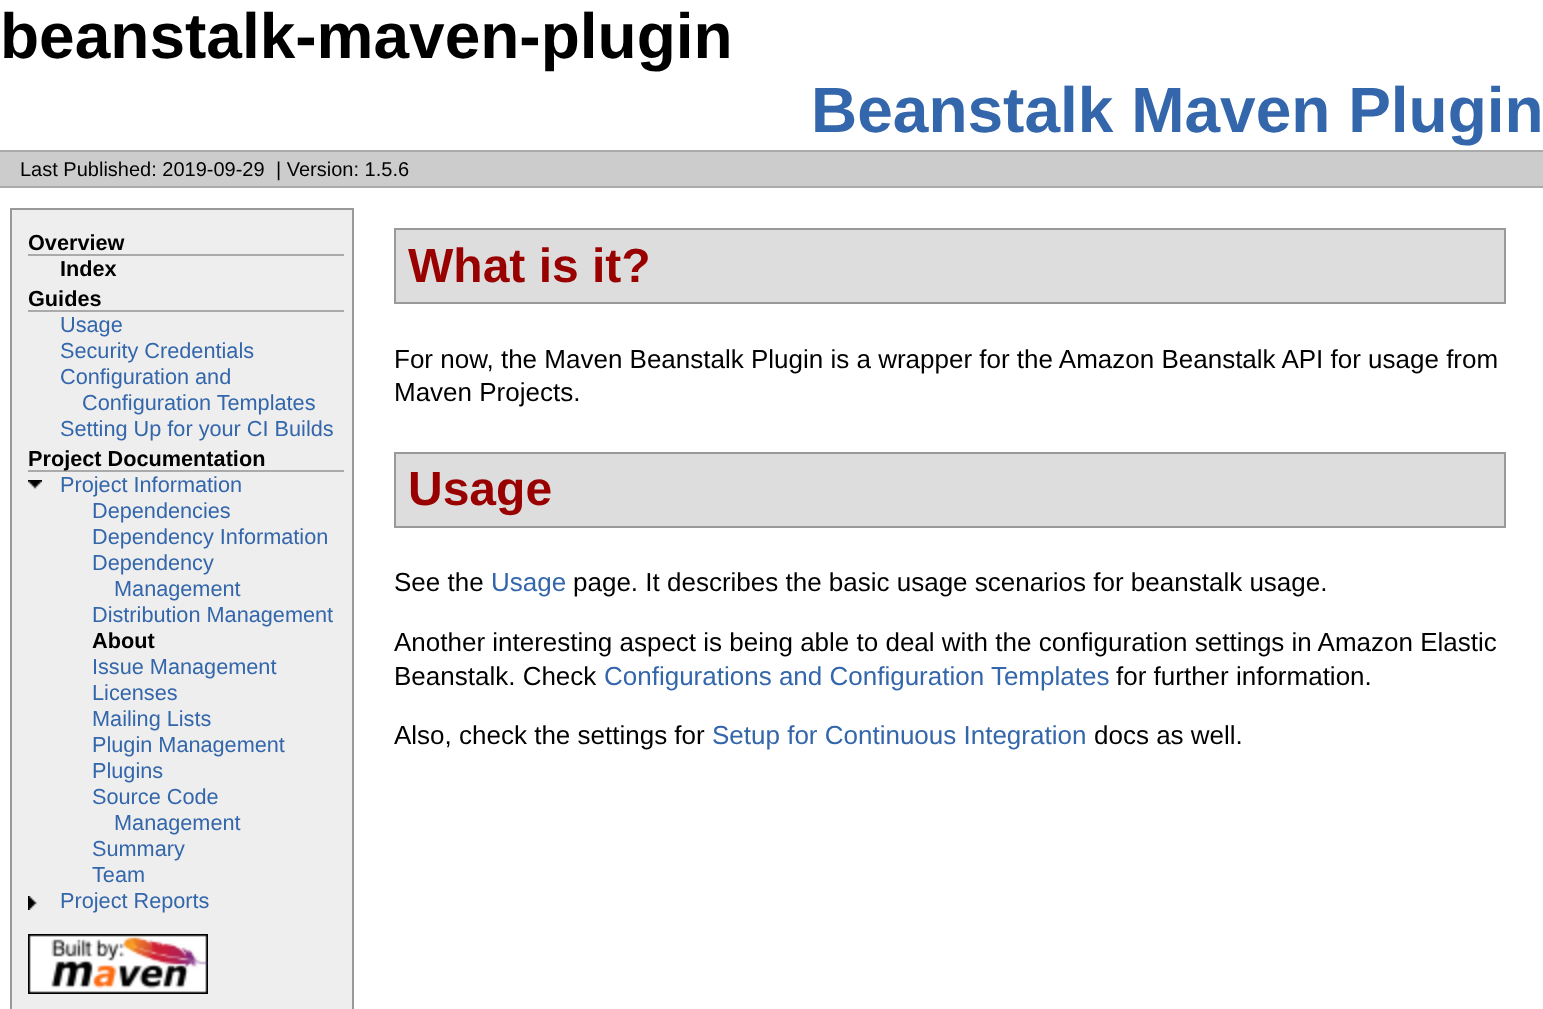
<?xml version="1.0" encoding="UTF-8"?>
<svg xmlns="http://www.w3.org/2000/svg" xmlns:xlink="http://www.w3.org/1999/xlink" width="1543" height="1009">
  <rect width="100%" height="100%" fill="#ffffff" />
  <rect y="152" width="1543" height="34" fill="#cccccc" />
  <rect y="150" width="1543" height="2" fill="#aaaaaa" />
  <rect y="186" width="1543" height="2" fill="#aaaaaa" />
  <rect x="11" y="209" width="342" height="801" fill="#eeeeee" stroke="#999999" stroke-width="2" />
  <rect x="28" y="254" width="316" height="2" fill="#aaaaaa" />
  <rect x="28" y="310" width="316" height="2" fill="#aaaaaa" />
  <rect x="28" y="470" width="316" height="2" fill="#aaaaaa" />
  <image x="28" y="480" width="14" height="9" xlink:href="image1.png" />
  <image x="28" y="896" width="9" height="14" xlink:href="image2.png" />
  <image x="28" y="934" width="180" height="60" xlink:href="image3.png" />
  <rect x="395" y="229" width="1110" height="74" fill="#dddddd" stroke="#999999" stroke-width="2" />
  <rect x="395" y="453" width="1110" height="74" fill="#dddddd" stroke="#999999" stroke-width="2" />
  <text x="0" y="58" style="font-family: Liberation Sans; font-size: 64px; font-weight: bold; fill: #000000">beanstalk-maven-plugin</text>
  <text x="811" y="132" style="font-family: Liberation Sans; font-size: 64px; font-weight: bold; fill: #3366aa">Beanstalk Maven Plugin</text>
  <text x="20" y="176" style="font-family: Liberation Sans; font-size: 20px; fill: #000000">Last Published: 2019-09-29</text>
  <text x="276" y="176" style="font-family: Liberation Sans; font-size: 20px; fill: #000000">| Version: 1.5.6</text>
  <text x="28" y="250" style="font-family: Liberation Sans; font-size: 21.7px; font-weight: bold; fill: #000000">Overview</text>
  <text x="60" y="276" style="font-family: Liberation Sans; font-size: 21.7px; font-weight: bold; fill: #000000">Index</text>
  <text x="28" y="306" style="font-family: Liberation Sans; font-size: 21.7px; font-weight: bold; fill: #000000">Guides</text>
  <text x="60" y="332" style="font-family: Liberation Sans; font-size: 21.7px; fill: #3366aa">Usage</text>
  <text x="60" y="358" style="font-family: Liberation Sans; font-size: 21.7px; fill: #3366aa">Security Credentials</text>
  <text x="60" y="384" style="font-family: Liberation Sans; font-size: 21.7px; fill: #3366aa">Configuration and</text>
  <text x="82" y="410" style="font-family: Liberation Sans; font-size: 21.7px; fill: #3366aa">Configuration Templates</text>
  <text x="60" y="436" style="font-family: Liberation Sans; font-size: 21.7px; fill: #3366aa">Setting Up for your CI Builds</text>
  <text x="28" y="466" style="font-family: Liberation Sans; font-size: 21.7px; font-weight: bold; fill: #000000">Project Documentation</text>
  <text x="60" y="492" style="font-family: Liberation Sans; font-size: 21.7px; fill: #3366aa">Project Information</text>
  <text x="92" y="518" style="font-family: Liberation Sans; font-size: 21.7px; fill: #3366aa">Dependencies</text>
  <text x="92" y="544" style="font-family: Liberation Sans; font-size: 21.7px; fill: #3366aa">Dependency Information</text>
  <text x="92" y="570" style="font-family: Liberation Sans; font-size: 21.7px; fill: #3366aa">Dependency</text>
  <text x="114" y="596" style="font-family: Liberation Sans; font-size: 21.7px; fill: #3366aa">Management</text>
  <text x="92" y="622" style="font-family: Liberation Sans; font-size: 21.7px; fill: #3366aa">Distribution Management</text>
  <text x="92" y="648" style="font-family: Liberation Sans; font-size: 21.7px; font-weight: bold; fill: #000000">About</text>
  <text x="92" y="674" style="font-family: Liberation Sans; font-size: 21.7px; fill: #3366aa">Issue Management</text>
  <text x="92" y="700" style="font-family: Liberation Sans; font-size: 21.7px; fill: #3366aa">Licenses</text>
  <text x="92" y="726" style="font-family: Liberation Sans; font-size: 21.7px; fill: #3366aa">Mailing Lists</text>
  <text x="92" y="752" style="font-family: Liberation Sans; font-size: 21.7px; fill: #3366aa">Plugin Management</text>
  <text x="92" y="778" style="font-family: Liberation Sans; font-size: 21.7px; fill: #3366aa">Plugins</text>
  <text x="92" y="804" style="font-family: Liberation Sans; font-size: 21.7px; fill: #3366aa">Source Code</text>
  <text x="114" y="830" style="font-family: Liberation Sans; font-size: 21.7px; fill: #3366aa">Management</text>
  <text x="92" y="856" style="font-family: Liberation Sans; font-size: 21.7px; fill: #3366aa">Summary</text>
  <text x="92" y="882" style="font-family: Liberation Sans; font-size: 21.7px; fill: #3366aa">Team</text>
  <text x="60" y="908" style="font-family: Liberation Sans; font-size: 21.7px; fill: #3366aa">Project Reports</text>
  <text x="408" y="282" style="font-family: Liberation Sans; font-size: 48px; font-weight: bold; fill: #990000">What is it?</text>
  <text x="394" y="368" style="font-family: Liberation Sans; font-size: 26px; fill: #000000">For now, the Maven Beanstalk Plugin is a wrapper for the Amazon Beanstalk API for usage from</text>
  <text x="394" y="401" style="font-family: Liberation Sans; font-size: 26px; fill: #000000">Maven Projects.</text>
  <text x="408" y="505" style="font-family: Liberation Sans; font-size: 48px; font-weight: bold; fill: #990000">Usage</text>
  <text x="394" y="591" style="font-family: Liberation Sans; font-size: 26px; fill: #000000">See the</text>
  <text x="491" y="591" style="font-family: Liberation Sans; font-size: 26px; fill: #3366aa">Usage</text>
  <text x="573" y="591" style="font-family: Liberation Sans; font-size: 26px; fill: #000000">page. It describes the basic usage scenarios for beanstalk usage.</text>
  <text x="394" y="651" style="font-family: Liberation Sans; font-size: 26px; fill: #000000">Another interesting aspect is being able to deal with the configuration settings in Amazon Elastic</text>
  <text x="394" y="685" style="font-family: Liberation Sans; font-size: 26px; fill: #000000">Beanstalk. Check</text>
  <text x="604" y="685" style="font-family: Liberation Sans; font-size: 26px; fill: #3366aa">Configurations and Configuration Templates</text>
  <text x="1116" y="685" style="font-family: Liberation Sans; font-size: 26px; fill: #000000">for further information.</text>
  <text x="394" y="744" style="font-family: Liberation Sans; font-size: 26px; fill: #000000">Also, check the settings for</text>
  <text x="712" y="744" style="font-family: Liberation Sans; font-size: 26px; fill: #3366aa">Setup for Continuous Integration</text>
  <text x="1094" y="744" style="font-family: Liberation Sans; font-size: 26px; fill: #000000">docs as well.</text>
</svg>
